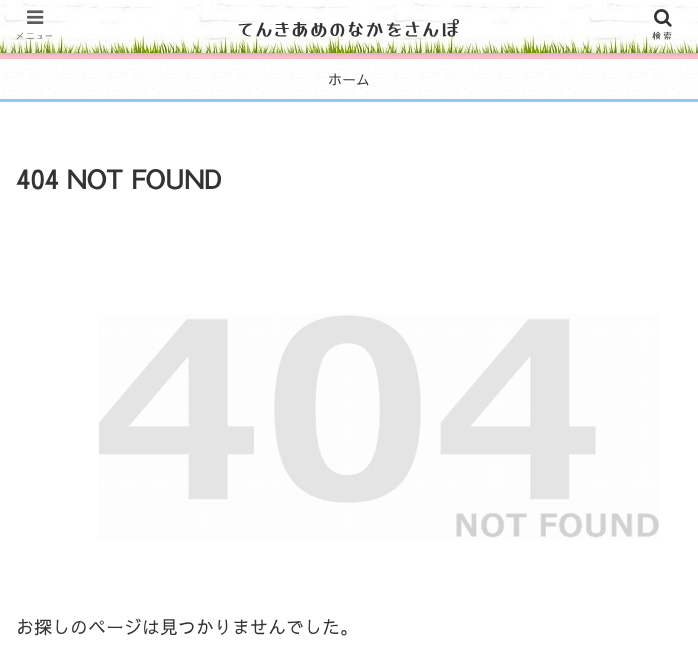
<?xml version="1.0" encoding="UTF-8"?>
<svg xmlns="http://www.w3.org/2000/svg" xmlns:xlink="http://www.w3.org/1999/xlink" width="698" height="654">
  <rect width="100%" height="100%" fill="#ffffff" />
  <rect y="53" width="698" height="6" fill="#ffc0cb" />
  <image x="0" y="59" width="698" height="40" xlink:href="image4.png" />
  <rect width="698" height="53" fill="#a9a9a9" filter="blur(2.5px)" />
  <image x="0" y="0" width="698" height="53" xlink:href="image1.png" />
  <image x="27" y="10" width="17" height="14" xlink:href="image2.png" />
  <image x="654" y="9" width="18" height="18" xlink:href="image3.png" />
  <rect y="99" width="698" height="3" fill="#87ceeb" />
  <image x="98" y="314" width="561" height="225" xlink:href="image5.png" />
  <text x="16" y="39" style="font-family: Yusei Magic; font-size: 9px; letter-spacing: 2px; fill: #7a7a7a">メニュー</text>
  <text x="238" y="36" style="font-family: Yusei Magic; font-size: 19px; letter-spacing: 2px; fill: #333333">てんきあめのなかをさんぽ</text>
  <text x="652" y="39" style="font-family: Yusei Magic; font-size: 9px; letter-spacing: 2px; fill: #5c5c5b">検索</text>
  <text x="328" y="85" style="font-family: Sawarabi Gothic; font-size: 14px; fill: #333333">ホーム</text>
  <text x="16" y="189" style="font-family: Sawarabi Gothic; font-size: 26px; font-weight: bold; fill: #333333">404 NOT FOUND</text>
  <text x="16" y="634" style="font-family: Sawarabi Gothic; font-size: 18px; fill: #333333">お探しのページは見つかりませんでした。</text>
</svg>
